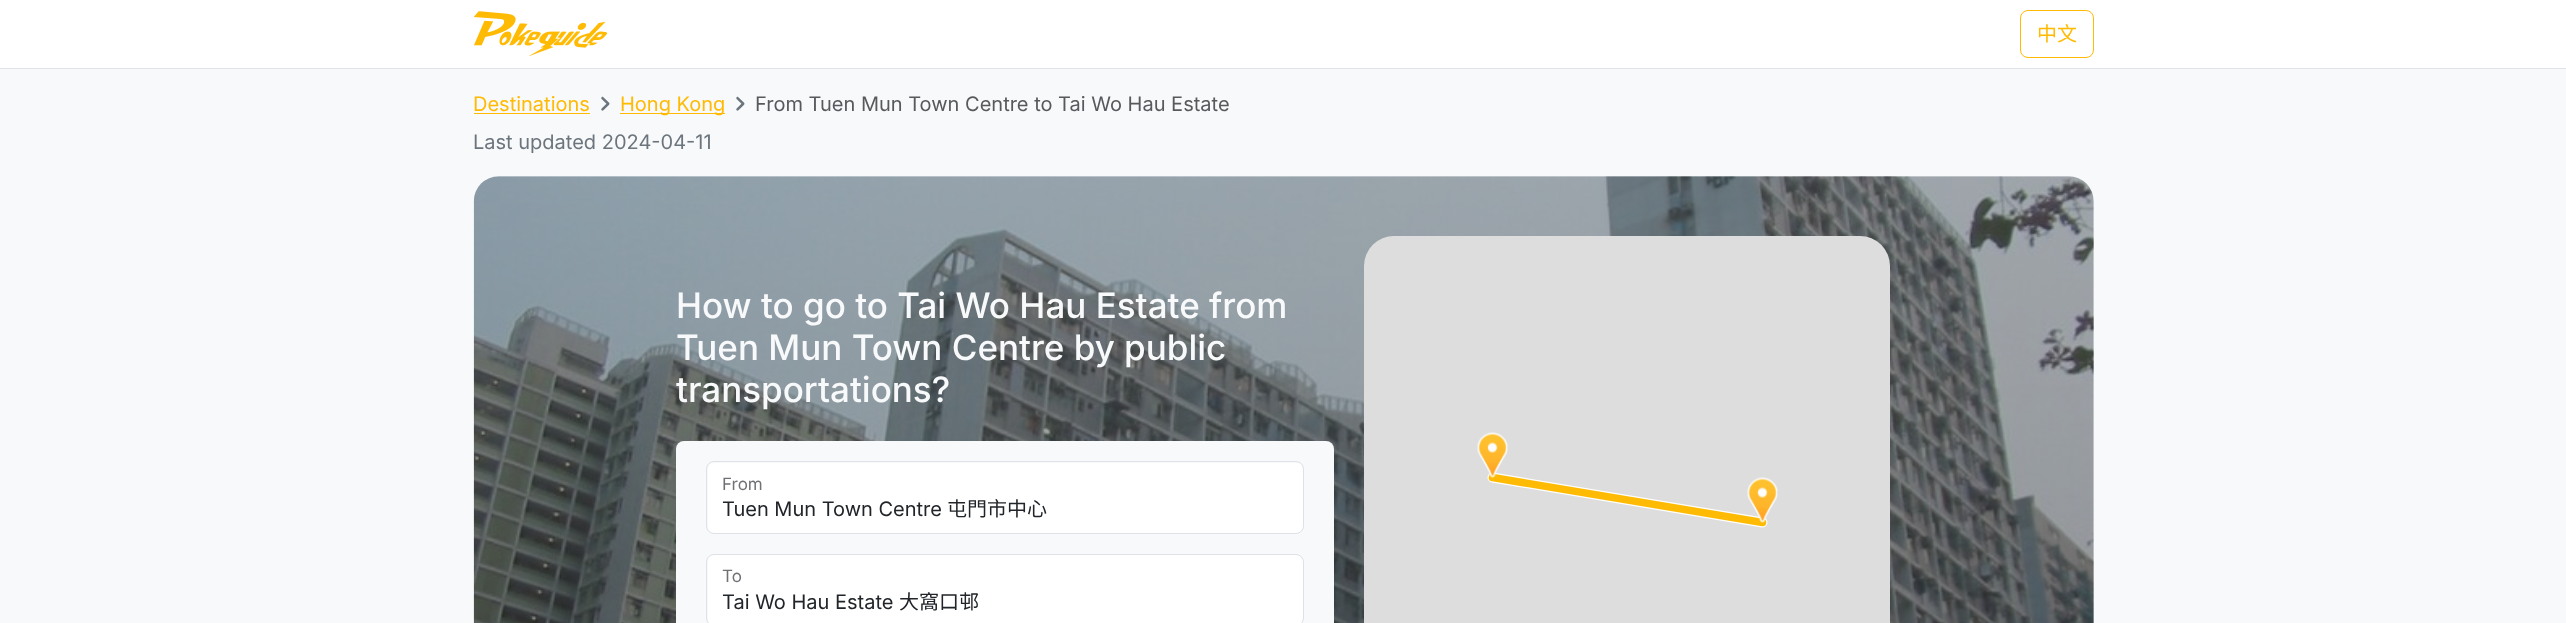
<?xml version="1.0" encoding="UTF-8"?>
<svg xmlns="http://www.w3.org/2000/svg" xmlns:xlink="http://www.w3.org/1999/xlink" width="2566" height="623">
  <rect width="100%" height="100%" fill="#ffffff" />
  <rect y="68" width="2566" height="1" fill="#dee2e6" />
  <image x="474" y="11" width="134" height="45" xlink:href="image1.png" />
  <rect x="2020.5" y="10.5" width="73" height="47" rx="7.5" fill="none" stroke="#ffba03" />
  <rect y="69" width="2566" height="554" fill="#f8f9fa" />
  <rect x="474" y="113" width="116" height="1" fill="#ffba03" />
  <image x="601" y="96" width="9" height="15" xlink:href="image2.png" />
  <rect x="620" y="113" width="105" height="1" fill="#ffba03" />
  <image x="736" y="96" width="9" height="15" xlink:href="image2.png" />
  <image x="473" y="176" width="1621" height="447" xlink:href="image3.png" />
  <rect x="676" y="441" width="658" height="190" rx="8" fill="#f8f9fa" />
  <rect x="708" y="463" width="595" height="70" rx="6" fill="#ffffff" />
  <rect x="706.5" y="461.5" width="597" height="72" rx="7.5" fill="none" stroke="#dee2e6" />
  <rect x="708" y="555" width="595" height="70" rx="6" fill="#ffffff" />
  <rect x="706.5" y="554.5" width="597" height="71" rx="7.5" fill="none" stroke="#dee2e6" />
  <rect x="1364" y="236" width="526" height="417" rx="30" fill="#dddddd" />
  <path d="M 1492.5 477.5 l 270 45" fill="none" stroke="#ffffff" stroke-width="10" stroke-linecap="round" stroke-linejoin="round" />
  <path d="M 1492.5 477.5 l 270 45" fill="none" stroke="#ffba03" stroke-width="7.5" stroke-linecap="round" stroke-linejoin="round" />
  <image x="1477" y="432" width="31" height="46" xlink:href="image4.png" />
  <image x="1747" y="477" width="31" height="46" xlink:href="image5.png" />
  <text x="2037" y="41" style="font-family: Noto Sans HK; font-size: 20px; fill: #ffba03">中文</text>
  <text x="473" y="111" style="font-family: Inter; font-size: 20px; fill: #ffba03">Destinations</text>
  <text x="620" y="111" style="font-family: Inter; font-size: 20px; fill: #ffba03">Hong Kong</text>
  <text x="755" y="111" style="font-family: Inter; font-size: 20px; fill: #575a5d">From Tuen Mun Town Centre to Tai Wo Hau Estate</text>
  <text x="473" y="149" style="font-family: Inter; font-size: 20px; fill: #6c757d">Last updated 2024-04-11</text>
  <text x="676" y="318" style="font-family: Inter; font-size: 35px; font-weight: 500; fill: #f8f9fa">How to go to Tai Wo Hau Estate from</text>
  <text x="676" y="360" style="font-family: Inter; font-size: 35px; font-weight: 500; fill: #f8f9fa">Tuen Mun Town Centre by public</text>
  <text x="676" y="402" style="font-family: Inter; font-size: 35px; font-weight: 500; fill: #f8f9fa">transportations?</text>
  <text x="722" y="490" style="font-family: Inter; font-size: 17px; fill: #6f7174">From</text>
  <text x="722" y="516" style="font-family: Inter; font-size: 20px; fill: #212529">Tuen Mun Town Centre</text>
  <text x="947" y="516" style="font-family: Noto Sans HK; font-size: 20px; fill: #212529">屯門市中心</text>
  <text x="722" y="582" style="font-family: Inter; font-size: 17px; fill: #6f7174">To</text>
  <text x="722" y="609" style="font-family: Inter; font-size: 20px; fill: #212529">Tai Wo Hau Estate</text>
  <text x="899" y="609" style="font-family: Noto Sans HK; font-size: 20px; fill: #212529">大窩口邨</text>
</svg>
